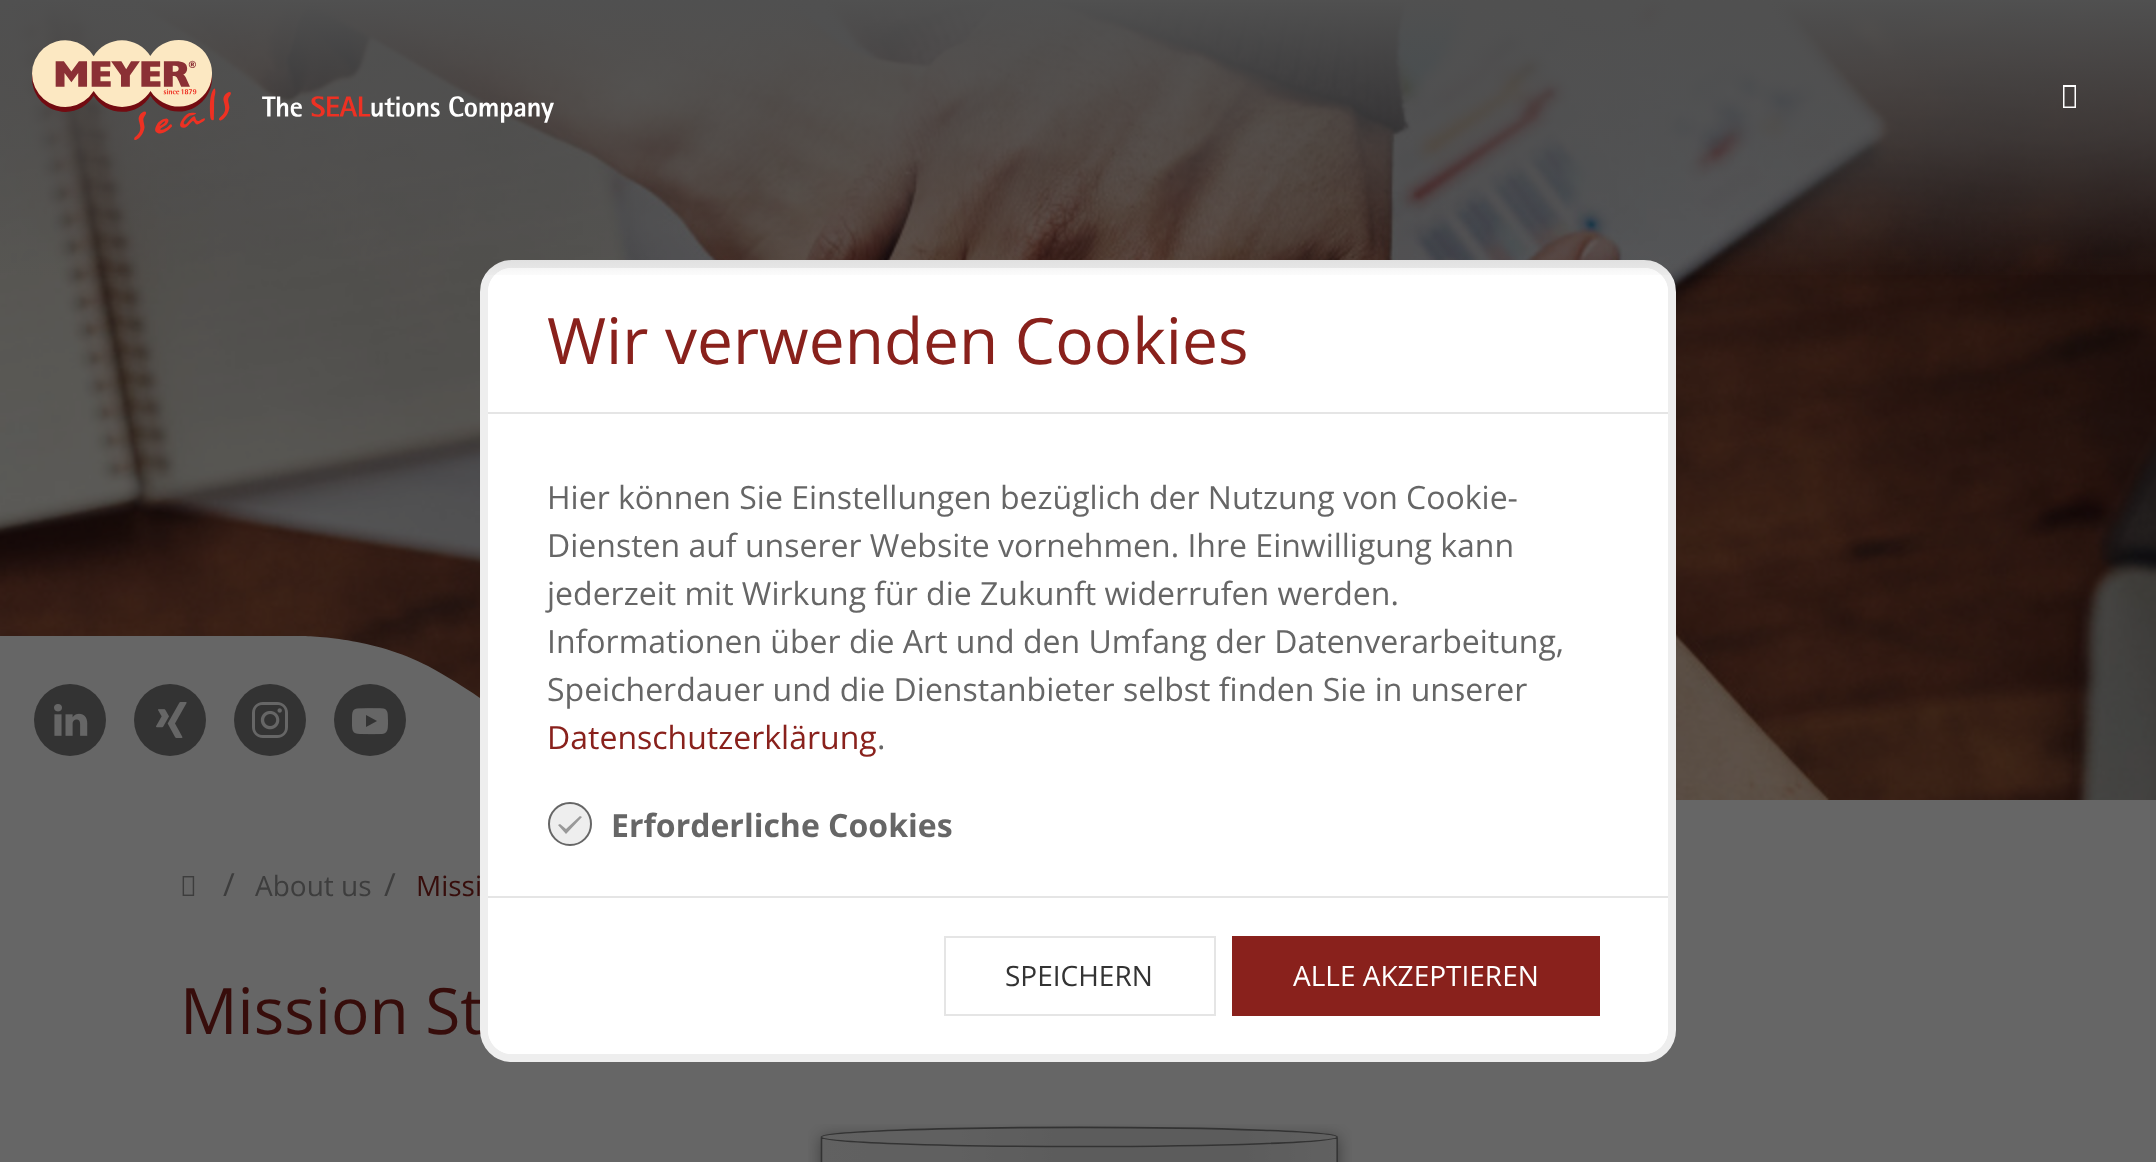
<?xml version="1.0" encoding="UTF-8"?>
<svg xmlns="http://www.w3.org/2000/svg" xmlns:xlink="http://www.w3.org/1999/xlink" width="2156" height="1162">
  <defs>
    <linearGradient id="g1" gradientUnits="userSpaceOnUse" x1="1078" y1="0" x2="1078" y2="280"><stop offset="0" stop-color="#505050" /><stop offset="0.5" stop-color="#505050" stop-opacity="0.6" /><stop offset="1" stop-color="#505050" stop-opacity="0" /></linearGradient>
  </defs>
  <rect width="100%" height="100%" fill="#666666" />
  <image x="0" y="2" width="2156" height="798" xlink:href="image2.png" />
  <path d="M 0 636 h 296 c 0 0 71 -2 132 30 c 60 33 94 64 94 64 c 0 0 49 43 79 55 c 44 18 119 19 119 19 h -720 z" fill="#666666" fill-rule="evenodd" />
  <circle cx="70" cy="720" r="36" fill="#333333" />
  <image x="54" y="704" width="34" height="32" xlink:href="image3.png" />
  <circle cx="170" cy="720" r="36" fill="#333333" />
  <image x="156" y="702" width="31" height="36" xlink:href="image4.png" />
  <circle cx="270" cy="720" r="36" fill="#333333" />
  <image x="252" y="702" width="36" height="36" xlink:href="image5.png" />
  <circle cx="370" cy="720" r="36" fill="#333333" />
  <image x="352" y="708" width="36" height="27" xlink:href="image6.png" />
  <image x="182" y="876" width="13" height="20" xlink:href="image7.png" />
  <image x="808" y="1124" width="544" height="38" xlink:href="image8.png" />
  <text x="223" y="896" style="font-family: Open Sans; font-size: 32px; fill: #3d3d3d">/</text>
  <text x="255" y="896" style="font-family: Open Sans; font-size: 28px; fill: #3d3d3d">About us</text>
  <text x="384" y="896" style="font-family: Open Sans; font-size: 32px; fill: #3d3d3d">/</text>
  <text x="416" y="896" style="font-family: Open Sans; font-size: 28px; fill: #370d0b">Missi</text>
  <text x="180" y="1034" style="font-family: Open Sans; font-size: 64px; fill: #370d0b">Mission St</text>
  <rect x="484" y="264" width="1188" height="794" rx="28" fill="#ffffff" stroke="#eeeeee" stroke-width="8" />
  <path d="M 512 268 h 1132 c 13.5 0 24 10.5 24 24 v 122 h -1180 v -122 c 0 -13.5 10.5 -24 24 -24 z" fill="#ffffff" />
  <rect width="2156" height="275" fill="url(#g1)" />
  <path d="M 2063 108 v -23 h 13 v 23 z m 1.5 -1.5 h 10 v -19.5 h -10 z" fill="#ffffff" />
  <image x="32" y="40" width="522" height="100" xlink:href="image1.png" />
  <circle cx="570" cy="824" r="22" fill="#eeeeee" />
  <path d="M 580 816 l -14 13 l -6 -5 l -2 1 l 8 9 l 16 -17 z" fill="#999999" />
  <circle cx="570" cy="824" r="21" fill="none" stroke="#666666" stroke-width="2" />
  <text x="611" y="837" style="font-family: Open Sans; font-size: 32px; font-weight: bold; fill: #666666">Erforderliche Cookies</text>
  <text x="877" y="749" style="font-family: Open Sans; font-size: 32px; fill: #666666">.</text>
  <text x="547" y="749" style="font-family: Open Sans; font-size: 32px; fill: #89211c">Datenschutzerklärung</text>
  <text x="547" y="701" style="font-family: Open Sans; font-size: 32px; fill: #666666">Speicherdauer und die Dienstanbieter selbst finden Sie in unserer</text>
  <text x="547" y="653" style="font-family: Open Sans; font-size: 32px; fill: #666666">Informationen über die Art und den Umfang der Datenverarbeitung,</text>
  <text x="547" y="605" style="font-family: Open Sans; font-size: 32px; fill: #666666">jederzeit mit Wirkung für die Zukunft widerrufen werden.</text>
  <text x="547" y="557" style="font-family: Open Sans; font-size: 32px; fill: #666666">Diensten auf unserer Website vornehmen. Ihre Einwilligung kann</text>
  <text x="547" y="509" style="font-family: Open Sans; font-size: 32px; fill: #666666">Hier können Sie Einstellungen bezüglich der Nutzung von Cookie-</text>
  <path d="M 488 896 h 1180 v 134 c 0 13.5 -10.5 24 -24 24 h -1132 c -13.5 0 -24 -10.5 -24 -24 z" fill="#ffffff" />
  <rect x="1232" y="936" width="368" height="80" fill="#89211c" />
  <text x="1293" y="986" style="font-family: Open Sans; font-size: 28px; fill: #ffffff">ALLE AKZEPTIEREN</text>
  <rect x="945" y="937" width="270" height="78" fill="none" stroke="#e5e5e5" stroke-width="2" />
  <text x="1005" y="986" style="font-family: Open Sans; font-size: 28px; fill: #333333">SPEICHERN</text>
  <text x="547" y="364" style="font-family: Open Sans; font-size: 64px; fill: #89211c">Wir verwenden Cookies</text>
  <rect x="488" y="896" width="1180" height="2" fill="#e5e5e5" />
  <rect x="488" y="412" width="1180" height="2" fill="#e5e5e5" />
</svg>
